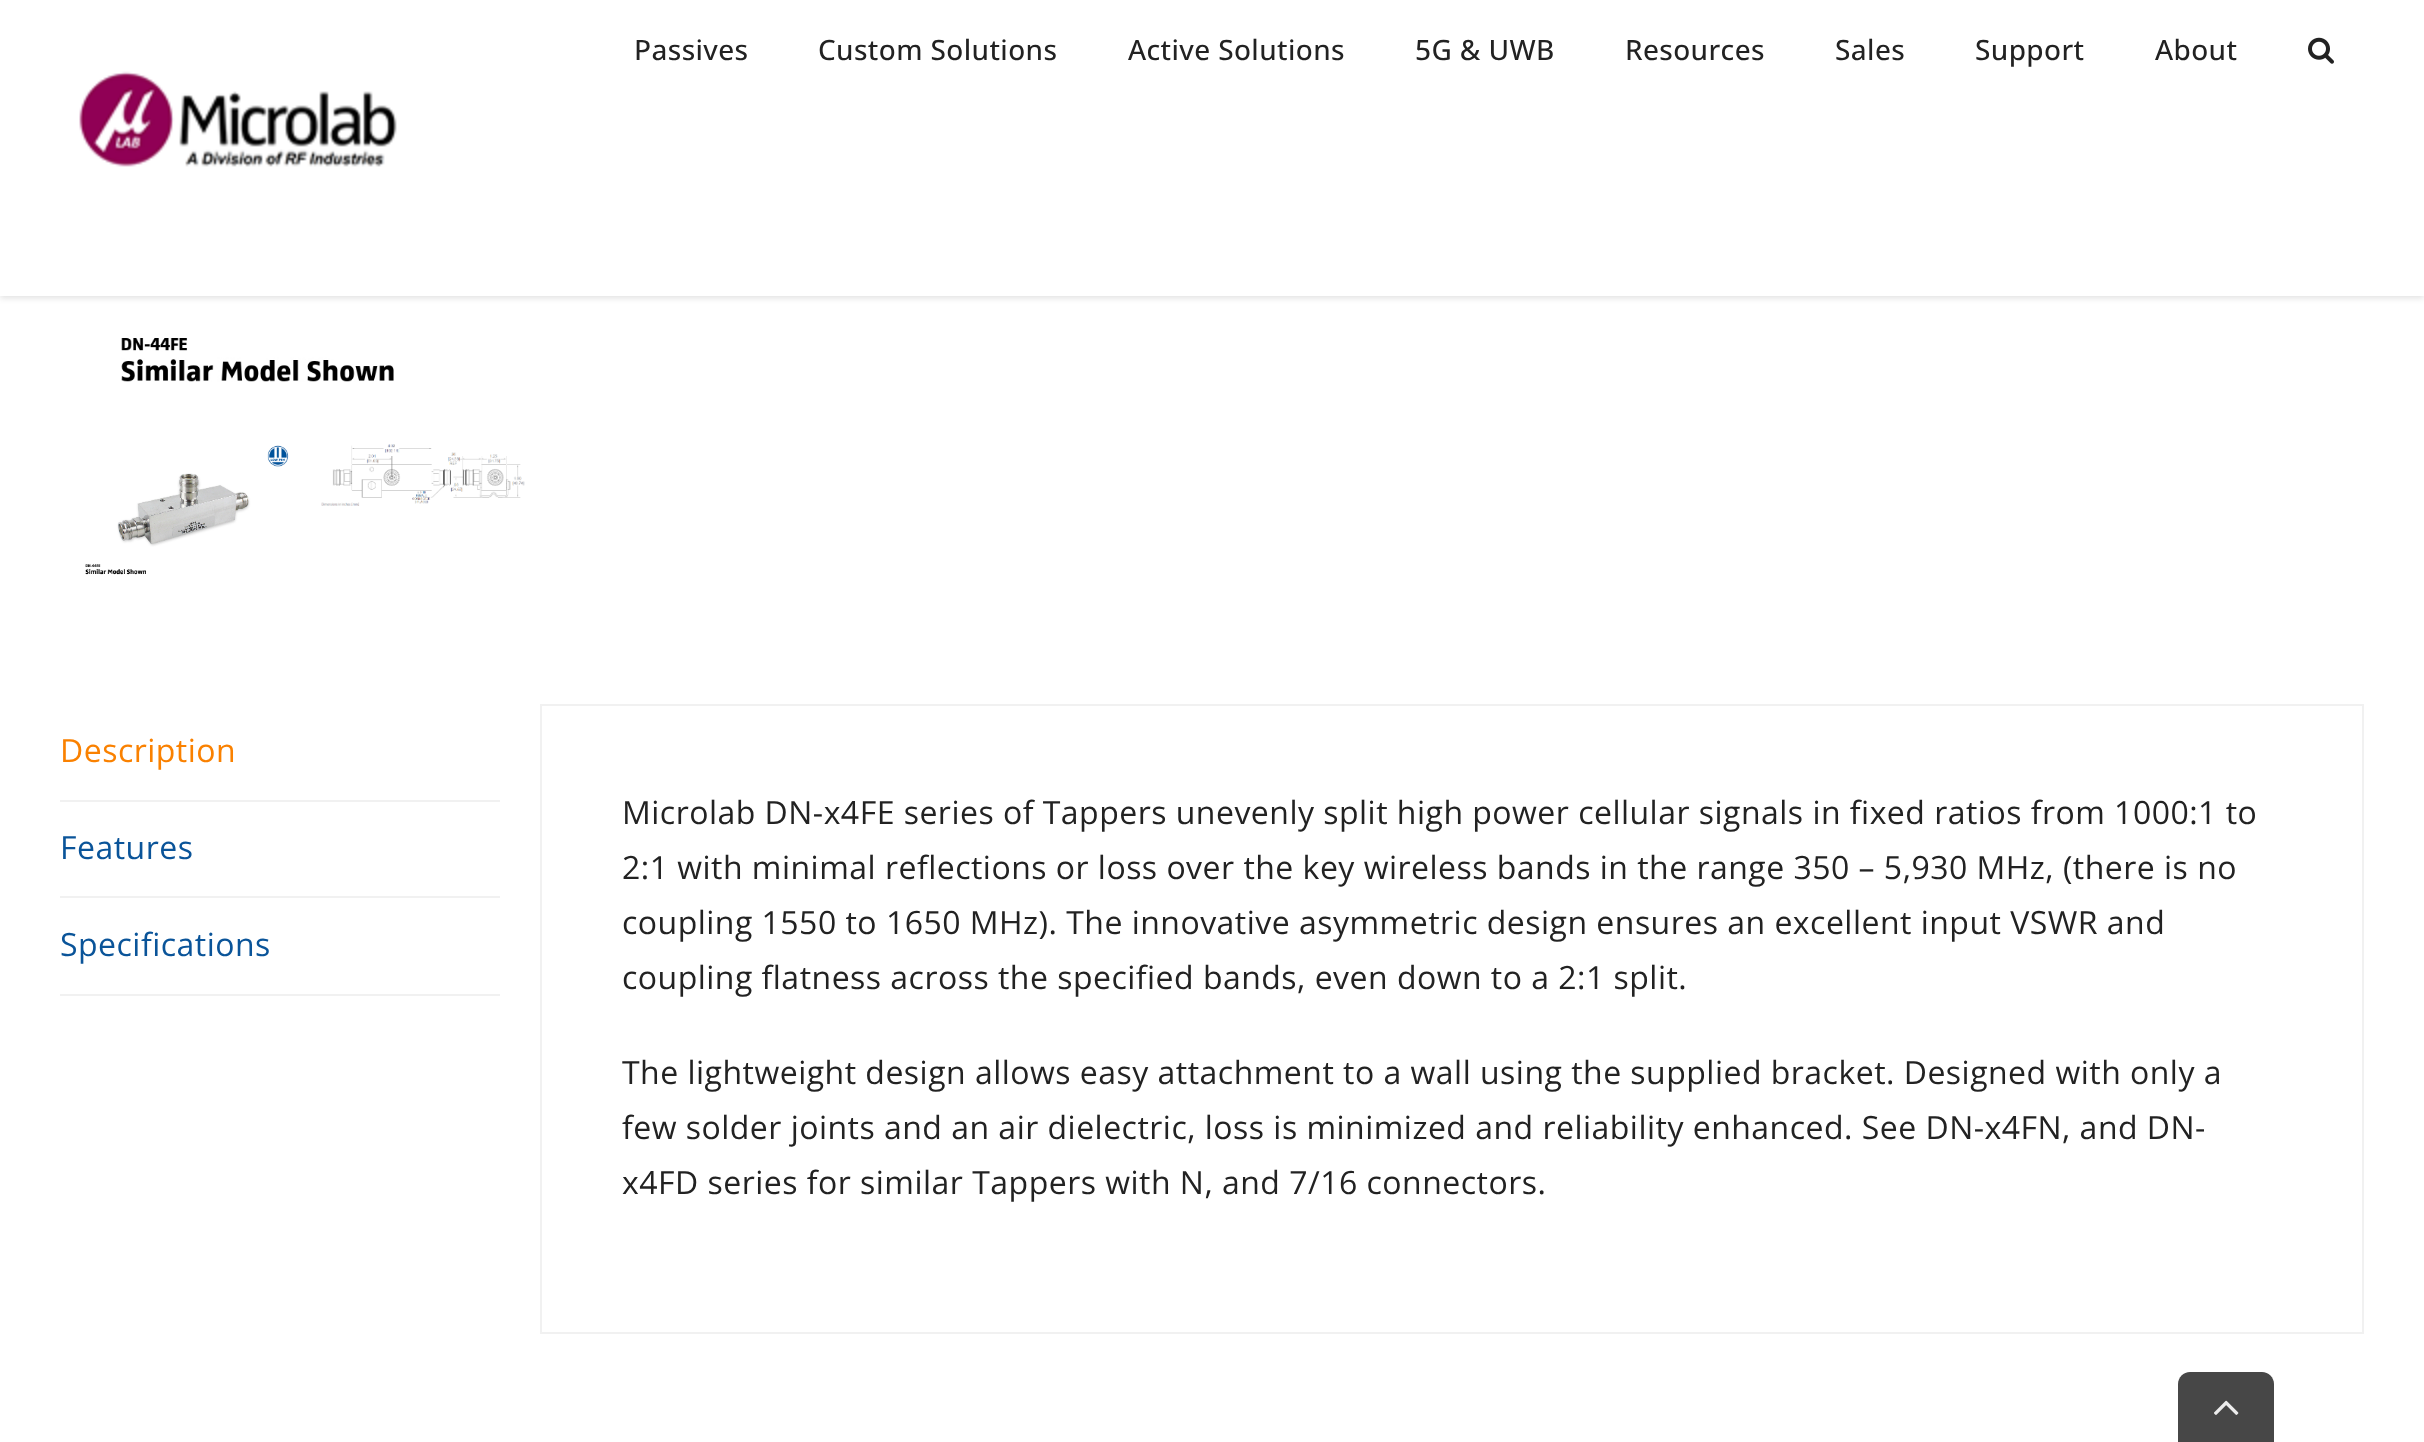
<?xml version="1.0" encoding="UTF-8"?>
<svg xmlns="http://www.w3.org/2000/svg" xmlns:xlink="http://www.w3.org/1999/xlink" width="2424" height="1442">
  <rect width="100%" height="100%" fill="#ffffff" />
  <image x="121" y="296" width="741" height="86" xlink:href="image3.png" />
  <rect y="2" width="2424" height="296" fill="#000000" fill-opacity="0.12" filter="blur(3px)" />
  <rect width="2424" height="296" fill="#ffffff" />
  <image x="2308" y="37" width="26" height="27" xlink:href="image1.png" />
  <image x="79" y="71" width="318" height="96" xlink:href="image2.png" />
  <image x="85" y="445" width="204" height="130" xlink:href="image4.png" />
  <image x="321" y="444" width="204" height="62" xlink:href="image5.png" />
  <rect x="60" y="800" width="440" height="2" fill="#f1f1f1" />
  <rect x="60" y="896" width="440" height="2" fill="#f1f1f1" />
  <rect x="60" y="994" width="440" height="2" fill="#f1f1f1" />
  <rect x="541" y="705" width="1822" height="628" fill="none" stroke="#f1f1f1" stroke-width="2" />
  <path d="M 2190 1372 h 72 c 6.5 0 12 5.5 12 12 v 58 h -96 v -58 c 0 -6.5 5.5 -12 12 -12 z" fill="#474747" />
  <image x="2214" y="1400" width="25" height="15" xlink:href="image6.png" />
  <text x="634" y="60" style="font-family: Open Sans; font-size: 28px; font-weight: 500; letter-spacing: 0.4px; fill: #222222">Passives</text>
  <text x="818" y="60" style="font-family: Open Sans; font-size: 28px; font-weight: 500; letter-spacing: 0.4px; fill: #222222">Custom Solutions</text>
  <text x="1128" y="60" style="font-family: Open Sans; font-size: 28px; font-weight: 500; letter-spacing: 0.4px; fill: #222222">Active Solutions</text>
  <text x="1415" y="60" style="font-family: Open Sans; font-size: 28px; font-weight: 500; letter-spacing: 0.4px; fill: #222222">5G &amp; UWB</text>
  <text x="1625" y="60" style="font-family: Open Sans; font-size: 28px; font-weight: 500; letter-spacing: 0.4px; fill: #222222">Resources</text>
  <text x="1835" y="60" style="font-family: Open Sans; font-size: 28px; font-weight: 500; letter-spacing: 0.4px; fill: #222222">Sales</text>
  <text x="1975" y="60" style="font-family: Open Sans; font-size: 28px; font-weight: 500; letter-spacing: 0.4px; fill: #222222">Support</text>
  <text x="2155" y="60" style="font-family: Open Sans; font-size: 28px; font-weight: 500; letter-spacing: 0.4px; fill: #222222">About</text>
  <text x="60" y="762" style="font-family: Open Sans; font-size: 32px; letter-spacing: 0.48px; fill: #fa8100">Description</text>
  <text x="60" y="859" style="font-family: Open Sans; font-size: 32px; letter-spacing: 0.48px; fill: #0a5499">Features</text>
  <text x="60" y="956" style="font-family: Open Sans; font-size: 32px; letter-spacing: 0.48px; fill: #0a5499">Specifications</text>
  <text x="622" y="824" style="font-family: Open Sans; font-size: 32px; letter-spacing: 0.48px; fill: #222222">Microlab DN-x4FE series of Tappers unevenly split high power cellular signals in fixed ratios from 1000:1 to</text>
  <text x="622" y="879" style="font-family: Open Sans; font-size: 32px; letter-spacing: 0.48px; fill: #222222">2:1 with minimal reflections or loss over the key wireless bands in the range 350 – 5,930 MHz, (there is no</text>
  <text x="622" y="934" style="font-family: Open Sans; font-size: 32px; letter-spacing: 0.48px; fill: #222222">coupling 1550 to 1650 MHz). The innovative asymmetric design ensures an excellent input VSWR and</text>
  <text x="622" y="989" style="font-family: Open Sans; font-size: 32px; letter-spacing: 0.48px; fill: #222222">coupling flatness across the specified bands, even down to a 2:1 split.</text>
  <text x="622" y="1084" style="font-family: Open Sans; font-size: 32px; letter-spacing: 0.48px; fill: #222222">The lightweight design allows easy attachment to a wall using the supplied bracket. Designed with only a</text>
  <text x="622" y="1139" style="font-family: Open Sans; font-size: 32px; letter-spacing: 0.48px; fill: #222222">few solder joints and an air dielectric, loss is minimized and reliability enhanced. See DN-x4FN, and DN-</text>
  <text x="622" y="1194" style="font-family: Open Sans; font-size: 32px; letter-spacing: 0.48px; fill: #222222">x4FD series for similar Tappers with N, and 7/16 connectors.</text>
</svg>
